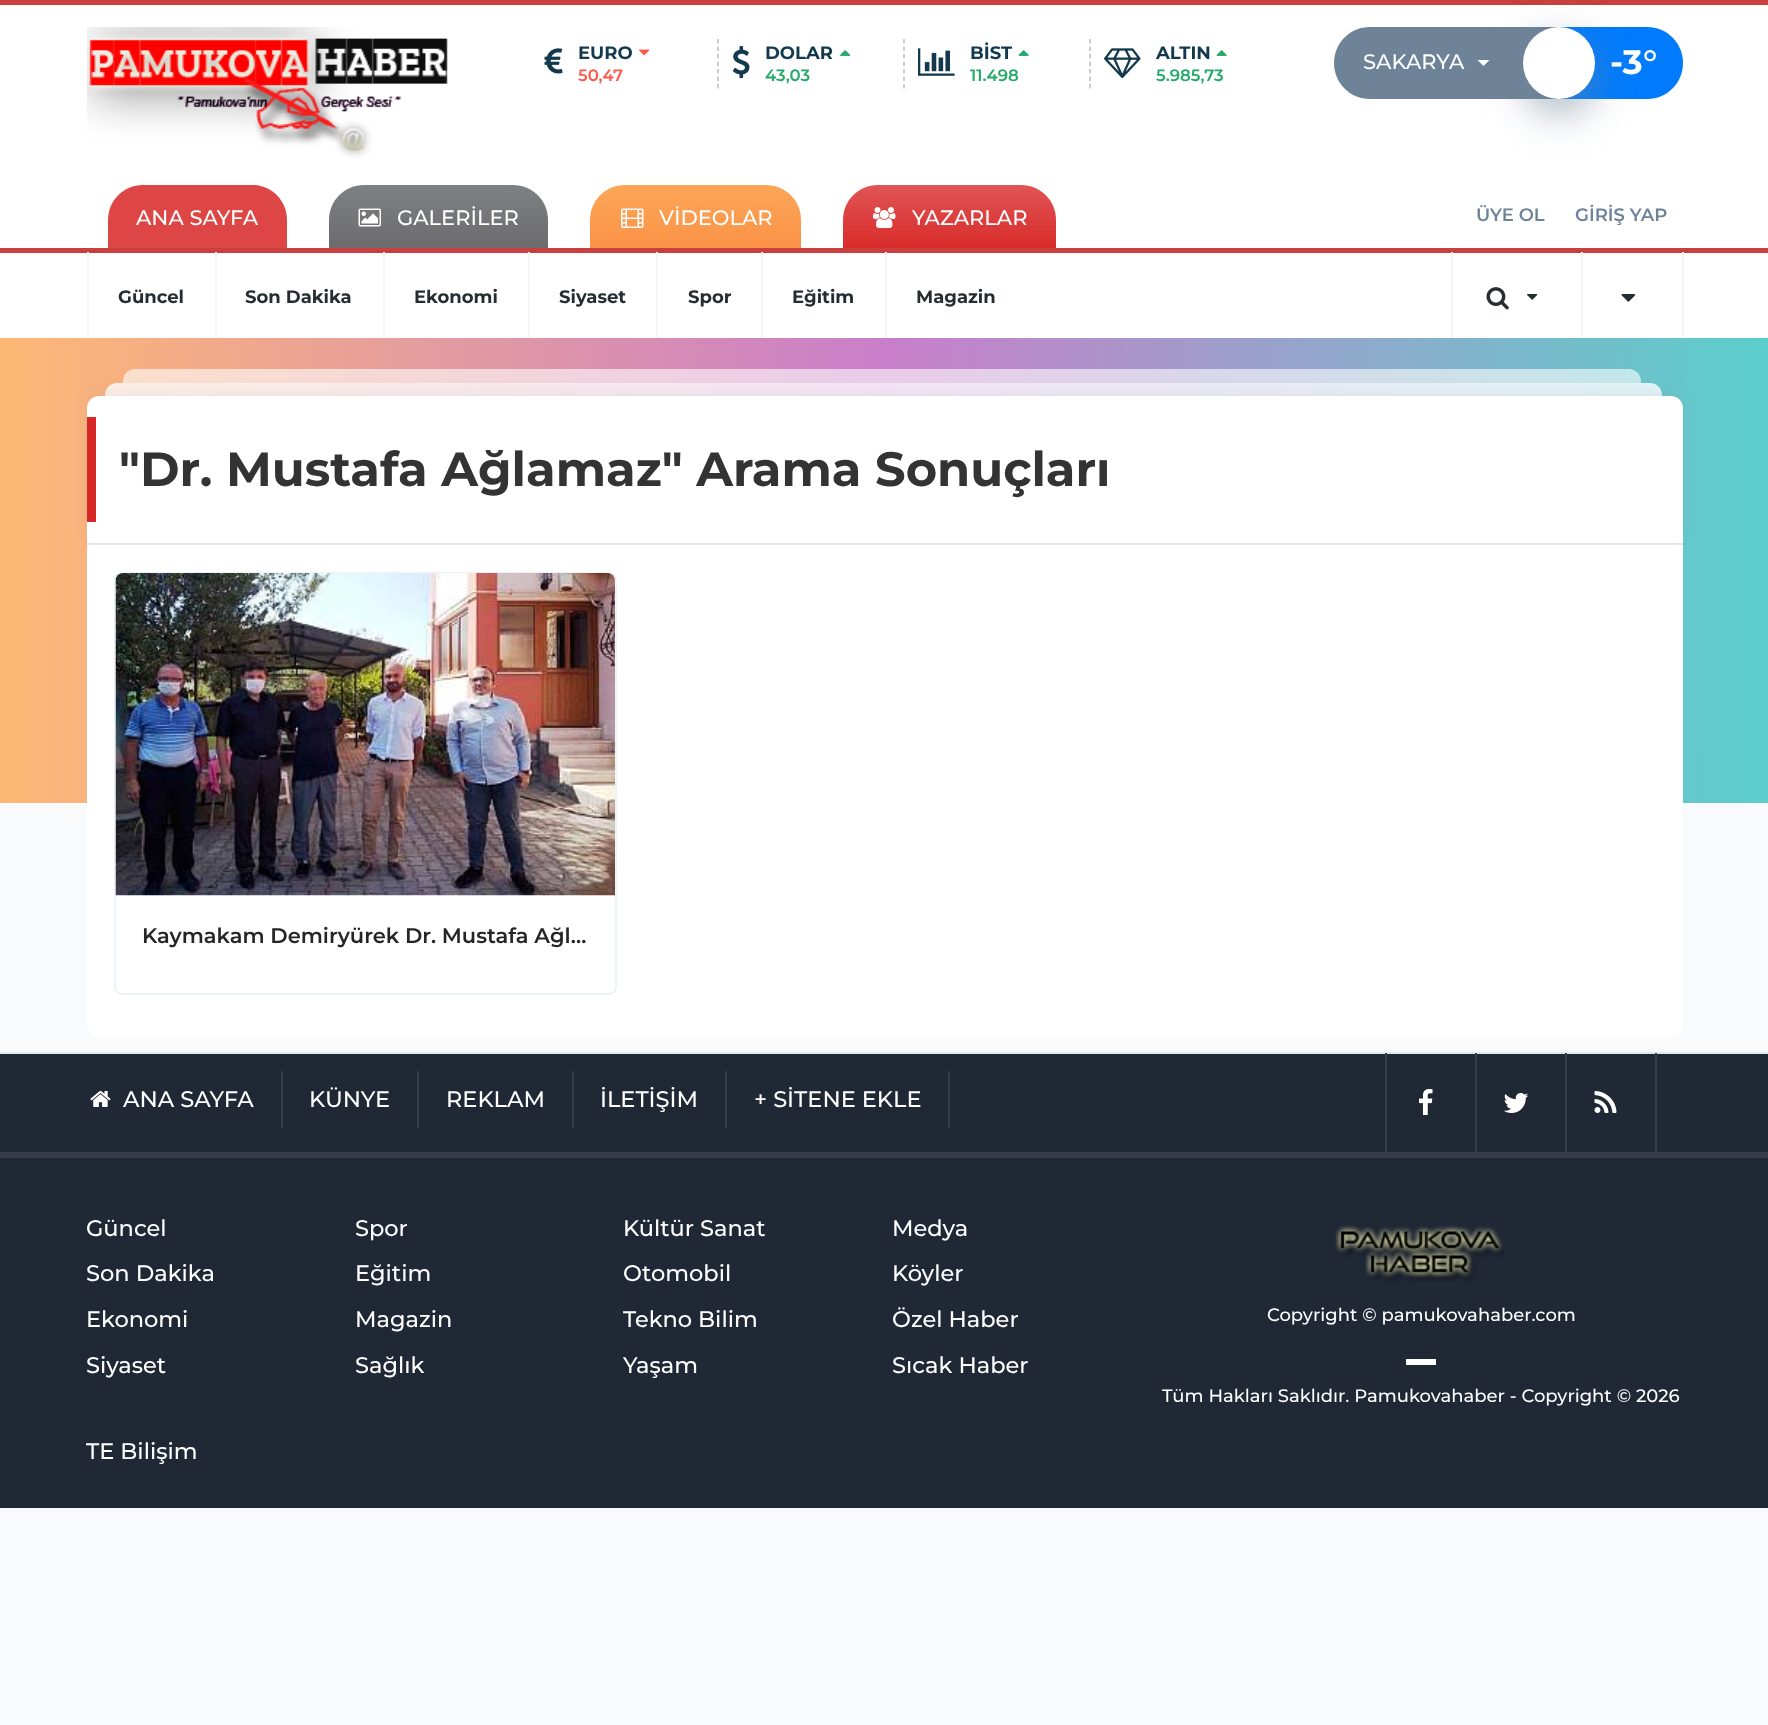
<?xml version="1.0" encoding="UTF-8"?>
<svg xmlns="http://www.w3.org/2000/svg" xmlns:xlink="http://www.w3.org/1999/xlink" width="1768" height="1725">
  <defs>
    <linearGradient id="g1" gradientUnits="userSpaceOnUse" x1="438" y1="184" x2="438" y2="248"><stop offset="0" stop-color="#7f8083" /><stop offset="1" stop-color="#6c6c6f" /></linearGradient>
    <linearGradient id="g2" gradientUnits="userSpaceOnUse" x1="695" y1="185" x2="695" y2="248"><stop offset="0" stop-color="#fca658" /><stop offset="1" stop-color="#fb9246" /></linearGradient>
    <linearGradient id="g3" gradientUnits="userSpaceOnUse" x1="950" y1="185" x2="950" y2="248"><stop offset="0" stop-color="#e05454" /><stop offset="1" stop-color="#d92c2b" /></linearGradient>
    <linearGradient id="g4" gradientUnits="userSpaceOnUse" x1="0" y1="353" x2="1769" y2="352"><stop offset="0" stop-color="#feb875" /><stop offset="0.5" stop-color="#c97eca" /><stop offset="1" stop-color="#5bcfcb" /></linearGradient>
    <linearGradient id="g5" gradientUnits="userSpaceOnUse" x1="0" y1="578" x2="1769" y2="577"><stop offset="0" stop-color="#feb875" /><stop offset="0.5" stop-color="#c97eca" /><stop offset="1" stop-color="#5bcfcb" /></linearGradient>
  </defs>
  <rect width="100%" height="100%" fill="#f8fafc" />
  <rect y="5" width="1768" height="243" fill="#ffffff" />
  <rect width="1768" height="5" fill="#c83f3e" />
  <image x="87" y="27" width="361" height="131" xlink:href="image1.png" />
  <image x="544" y="48" width="19" height="26" xlink:href="image2.png" />
  <image x="639" y="49" width="11" height="7" xlink:href="image3.png" />
  <path d="M 718 39 v 49.5" fill="none" stroke="#bfbfc2" stroke-width="1.5" stroke-dasharray="4.5 3" />
  <image x="732" y="46" width="18" height="33" xlink:href="image4.png" />
  <image x="840" y="50" width="11" height="6" xlink:href="image5.png" />
  <path d="M 904 39 v 49.5" fill="none" stroke="#bfbfc2" stroke-width="1.5" stroke-dasharray="4.5 3" />
  <image x="918" y="48" width="37" height="28" xlink:href="image6.png" />
  <image x="1018" y="50" width="11" height="6" xlink:href="image7.png" />
  <path d="M 1090 39 v 49.5" fill="none" stroke="#bfbfc2" stroke-width="1.5" stroke-dasharray="4.5 3" />
  <image x="1104" y="48" width="37" height="31" xlink:href="image8.png" />
  <image x="1216" y="50" width="11" height="6" xlink:href="image7.png" />
  <rect x="1523" y="27" width="36" height="72" fill="#6e8398" />
  <rect x="1559" y="27" width="36" height="72" fill="#007bfd" />
  <path d="M 1370 27 h 153 v 72 h -153 c -20 0 -36 -16 -36 -36 c 0 -20 16 -36 36 -36 z" fill="#6e8398" />
  <path d="M 1477.5 60 h 12 l -6 6 z" fill="#ffffff" />
  <path d="M 1595 27 h 52 c 20 0 36 16 36 36 c 0 20 -16 36 -36 36 h -52 z" fill="#007bfd" />
  <rect x="1523" y="41" width="72" height="72" rx="36" fill="#6e8398" fill-opacity="0.6" filter="blur(20px)" />
  <circle cx="1559" cy="63" r="36" fill="#ffffff" />
  <path d="M 143 185 h 109 c 19.5 0 35 15.5 35 35 v 28 h -179 v -28 c 0 -19.5 15.5 -35 35 -35 z" fill="#de4645" />
  <path d="M 364 185 h 149 c 19.5 0 35 15.5 35 35 v 28 h -219 v -28 c 0 -19.5 15.5 -35 35 -35 z" fill="url(#g1)" />
  <image x="358" y="208" width="23" height="19" xlink:href="image9.png" />
  <path d="M 625 185 h 141 c 19.5 0 35 15.5 35 35 v 28 h -211 v -28 c 0 -19.5 15.5 -35 35 -35 z" fill="url(#g2)" />
  <image x="621" y="208" width="23" height="20" xlink:href="image10.png" />
  <path d="M 878 185 h 143 c 19.5 0 35 15.5 35 35 v 28 h -213 v -28 c 0 -19.5 15.5 -35 35 -35 z" fill="url(#g3)" />
  <image x="873" y="207" width="23" height="21" xlink:href="image11.png" />
  <rect y="253" width="1768" height="85" fill="#ffffff" />
  <rect y="248" width="1768" height="5" fill="#c83f3e" />
  <rect x="1682" y="252" width="2" height="86" fill="#f5f5f5" />
  <rect x="87" y="252" width="2" height="86" fill="#f5f5f5" />
  <rect x="215" y="252" width="2" height="86" fill="#f5f5f5" />
  <rect x="383" y="252" width="2" height="86" fill="#f5f5f5" />
  <rect x="528" y="252" width="2" height="86" fill="#f5f5f5" />
  <rect x="656" y="252" width="2" height="86" fill="#f5f5f5" />
  <rect x="761" y="252" width="2" height="86" fill="#f5f5f5" />
  <rect x="885" y="252" width="2" height="86" fill="#f5f5f5" />
  <rect x="1451" y="252" width="2" height="86" fill="#f5f5f5" />
  <image x="1486" y="287" width="23" height="23" xlink:href="image12.png" />
  <image x="1527" y="294" width="11" height="6" xlink:href="image13.png" />
  <rect x="1581" y="252" width="2" height="86" fill="#f5f5f5" />
  <image x="1621" y="294" width="15" height="8" xlink:href="image14.png" />
  <rect y="338" width="1768" height="15" fill="url(#g4)" />
  <rect y="353" width="1768" height="450" fill="url(#g5)" />
  <path d="M 135 369 h 1494 c 6.5 0 12 5.5 12 12 v 2 h -1518 v -2 c 0 -6.5 5.5 -12 12 -12 z" fill="#ffffff" fill-opacity="0.6" />
  <path d="M 117 383 h 1533 c 6.5 0 12 5.5 12 12 v 1 h -1557 v -1 c 0 -6.5 5.5 -12 12 -12 z" fill="#ffffff" fill-opacity="0.8" />
  <path d="M 87 545 h 1596 v 480 c 0 6.5 -5.5 12 -12 12 h -1572 c -6.5 0 -12 -5.5 -12 -12 z" fill="#ffffff" />
  <rect x="87" y="390" width="1596" height="149" rx="12" fill="#6e8398" fill-opacity="0.08" filter="blur(6px)" />
  <path d="M 99 396 h 1572 c 6.5 0 12 5.5 12 12 v 137 h -1596 v -137 c 0 -6.5 5.5 -12 12 -12 z" fill="#ffffff" />
  <rect x="87" y="543" width="1596" height="2" fill="#e6e6e6" />
  <rect x="87" y="417" width="9" height="105" fill="#d82726" />
  <rect x="115" y="573" width="501" height="421" rx="7" fill="none" stroke="#eef3f7" stroke-width="2" />
  <image x="115" y="573" width="500" height="323" xlink:href="image15.png" />
  <rect y="1054" width="1768" height="98" fill="#202735" />
  <rect y="1052" width="1768" height="2" fill="#dfe9ee" />
  <rect y="1152" width="1768" height="6" fill="#373d4a" />
  <rect x="281" y="1071" width="2" height="57" fill="#373d4a" />
  <image x="90" y="1090" width="21" height="17" xlink:href="image16.png" />
  <rect x="417" y="1071" width="2" height="57" fill="#373d4a" />
  <rect x="572" y="1071" width="2" height="57" fill="#373d4a" />
  <rect x="725" y="1071" width="2" height="57" fill="#373d4a" />
  <rect x="948" y="1071" width="2" height="57" fill="#373d4a" />
  <rect x="1385" y="1053" width="2" height="99" fill="#373d4a" />
  <rect x="1475" y="1053" width="2" height="99" fill="#373d4a" />
  <image x="1419" y="1089" width="14" height="26" xlink:href="image17.png" />
  <rect x="1565" y="1053" width="2" height="99" fill="#373d4a" />
  <image x="1503" y="1093" width="26" height="20" xlink:href="image18.png" />
  <rect x="1655" y="1053" width="2" height="99" fill="#373d4a" />
  <image x="1594" y="1091" width="23" height="22" xlink:href="image19.png" />
  <rect y="1158" width="1768" height="350" fill="#202735" />
  <image x="1335" y="1225" width="170" height="57" xlink:href="image20.png" />
  <rect x="1406" y="1359" width="30" height="6" fill="#ffffff" />
  <text x="578" y="59" style="font-family: Montserrat; font-size: 18px; font-weight: bold; fill: #13394e">EURO</text>
  <text x="578" y="81" style="font-family: Montserrat; font-size: 16.5px; font-weight: 600; fill: #fa5a4c">50,47</text>
  <text x="765" y="59" style="font-family: Montserrat; font-size: 18px; font-weight: bold; fill: #13394e">DOLAR</text>
  <text x="765" y="81" style="font-family: Montserrat; font-size: 16.5px; font-weight: 600; fill: #26aa6c">43,03</text>
  <text x="970" y="59" style="font-family: Montserrat; font-size: 18px; font-weight: bold; fill: #13394e">BİST</text>
  <text x="970" y="81" style="font-family: Montserrat; font-size: 16.5px; font-weight: 600; fill: #26aa6c">11.498</text>
  <text x="1156" y="59" style="font-family: Montserrat; font-size: 18px; font-weight: bold; fill: #13394e">ALTIN</text>
  <text x="1156" y="81" style="font-family: Montserrat; font-size: 16.5px; font-weight: 600; fill: #26aa6c">5.985,73</text>
  <text x="1363" y="69" style="font-family: Montserrat; font-size: 21px; font-weight: 500; fill: #ffffff">SAKARYA</text>
  <text x="1610" y="74" style="font-family: Montserrat; font-size: 34px; font-weight: bold; fill: #ffffff">-3</text>
  <text x="1643" y="74" style="font-family: Montserrat; font-size: 34px; font-weight: 600; fill: #ffffff">°</text>
  <text x="136" y="225" style="font-family: Montserrat; font-size: 21px; font-weight: 500; fill: #ffffff">ANA SAYFA</text>
  <text x="397" y="225" style="font-family: Montserrat; font-size: 21px; font-weight: 500; fill: #ffffff">GALERİLER</text>
  <text x="659" y="225" style="font-family: Montserrat; font-size: 21px; font-weight: 500; fill: #ffffff">VİDEOLAR</text>
  <text x="912" y="225" style="font-family: Montserrat; font-size: 21px; font-weight: 500; fill: #ffffff">YAZARLAR</text>
  <text x="1476" y="221" style="font-family: Montserrat; font-size: 18px; font-weight: 600; fill: #6e8398">ÜYE OL</text>
  <text x="1575" y="221" style="font-family: Montserrat; font-size: 18px; font-weight: 600; fill: #6e8398">GİRİŞ YAP</text>
  <text x="118" y="303" style="font-family: Montserrat; font-size: 18px; font-weight: bold; fill: #252d31">Güncel</text>
  <text x="245" y="303" style="font-family: Montserrat; font-size: 18px; font-weight: bold; fill: #252d31">Son Dakika</text>
  <text x="414" y="303" style="font-family: Montserrat; font-size: 18px; font-weight: bold; fill: #252d31">Ekonomi</text>
  <text x="559" y="303" style="font-family: Montserrat; font-size: 18px; font-weight: bold; fill: #252d31">Siyaset</text>
  <text x="688" y="303" style="font-family: Montserrat; font-size: 18px; font-weight: bold; fill: #252d31">Spor</text>
  <text x="792" y="303" style="font-family: Montserrat; font-size: 18px; font-weight: bold; fill: #252d31">Eğitim</text>
  <text x="916" y="303" style="font-family: Montserrat; font-size: 18px; font-weight: bold; fill: #252d31">Magazin</text>
  <text x="119" y="486" style="font-family: Montserrat; font-size: 48px; font-weight: bold; fill: #333333">"Dr. Mustafa Ağlamaz" Arama Sonuçları</text>
  <text x="142" y="943" style="font-family: Montserrat; font-size: 21px; font-weight: 600; fill: #252525">Kaymakam Demiryürek Dr. Mustafa Ağl…</text>
  <text x="123" y="1107" style="font-family: Montserrat; font-size: 22.5px; font-weight: 500; fill: #ffffff">ANA SAYFA</text>
  <text x="309" y="1107" style="font-family: Montserrat; font-size: 22.5px; font-weight: 500; fill: #ffffff">KÜNYE</text>
  <text x="446" y="1107" style="font-family: Montserrat; font-size: 22.5px; font-weight: 500; fill: #ffffff">REKLAM</text>
  <text x="600" y="1107" style="font-family: Montserrat; font-size: 22.5px; font-weight: 500; fill: #ffffff">İLETİŞİM</text>
  <text x="754" y="1107" style="font-family: Montserrat; font-size: 22.5px; font-weight: 500; fill: #ffffff">+ SİTENE EKLE</text>
  <text x="86" y="1236" style="font-family: Montserrat; font-size: 22.5px; font-weight: 500; fill: #ffffff">Güncel</text>
  <text x="86" y="1281" style="font-family: Montserrat; font-size: 22.5px; font-weight: 500; fill: #ffffff">Son Dakika</text>
  <text x="86" y="1327" style="font-family: Montserrat; font-size: 22.5px; font-weight: 500; fill: #ffffff">Ekonomi</text>
  <text x="86" y="1373" style="font-family: Montserrat; font-size: 22.5px; font-weight: 500; fill: #ffffff">Siyaset</text>
  <text x="355" y="1236" style="font-family: Montserrat; font-size: 22.5px; font-weight: 500; fill: #ffffff">Spor</text>
  <text x="355" y="1281" style="font-family: Montserrat; font-size: 22.5px; font-weight: 500; fill: #ffffff">Eğitim</text>
  <text x="355" y="1327" style="font-family: Montserrat; font-size: 22.5px; font-weight: 500; fill: #ffffff">Magazin</text>
  <text x="355" y="1373" style="font-family: Montserrat; font-size: 22.5px; font-weight: 500; fill: #ffffff">Sağlık</text>
  <text x="623" y="1236" style="font-family: Montserrat; font-size: 22.5px; font-weight: 500; fill: #ffffff">Kültür Sanat</text>
  <text x="623" y="1281" style="font-family: Montserrat; font-size: 22.5px; font-weight: 500; fill: #ffffff">Otomobil</text>
  <text x="623" y="1327" style="font-family: Montserrat; font-size: 22.5px; font-weight: 500; fill: #ffffff">Tekno Bilim</text>
  <text x="623" y="1373" style="font-family: Montserrat; font-size: 22.5px; font-weight: 500; fill: #ffffff">Yaşam</text>
  <text x="892" y="1236" style="font-family: Montserrat; font-size: 22.5px; font-weight: 500; fill: #ffffff">Medya</text>
  <text x="892" y="1281" style="font-family: Montserrat; font-size: 22.5px; font-weight: 500; fill: #ffffff">Köyler</text>
  <text x="892" y="1327" style="font-family: Montserrat; font-size: 22.5px; font-weight: 500; fill: #ffffff">Özel Haber</text>
  <text x="892" y="1373" style="font-family: Montserrat; font-size: 22.5px; font-weight: 500; fill: #ffffff">Sıcak Haber</text>
  <text x="1267" y="1321" style="font-family: Montserrat; font-size: 18px; font-weight: 500; fill: #ffffff">Copyright © pamukovahaber.com</text>
  <text x="1162" y="1402" style="font-family: Montserrat; font-size: 18px; font-weight: 500; fill: #ffffff">Tüm Hakları Saklıdır. Pamukovahaber - Copyright © 2026</text>
  <text x="86" y="1459" style="font-family: Montserrat; font-size: 22.5px; font-weight: 500; fill: #ffffff">TE Bilişim</text>
</svg>
